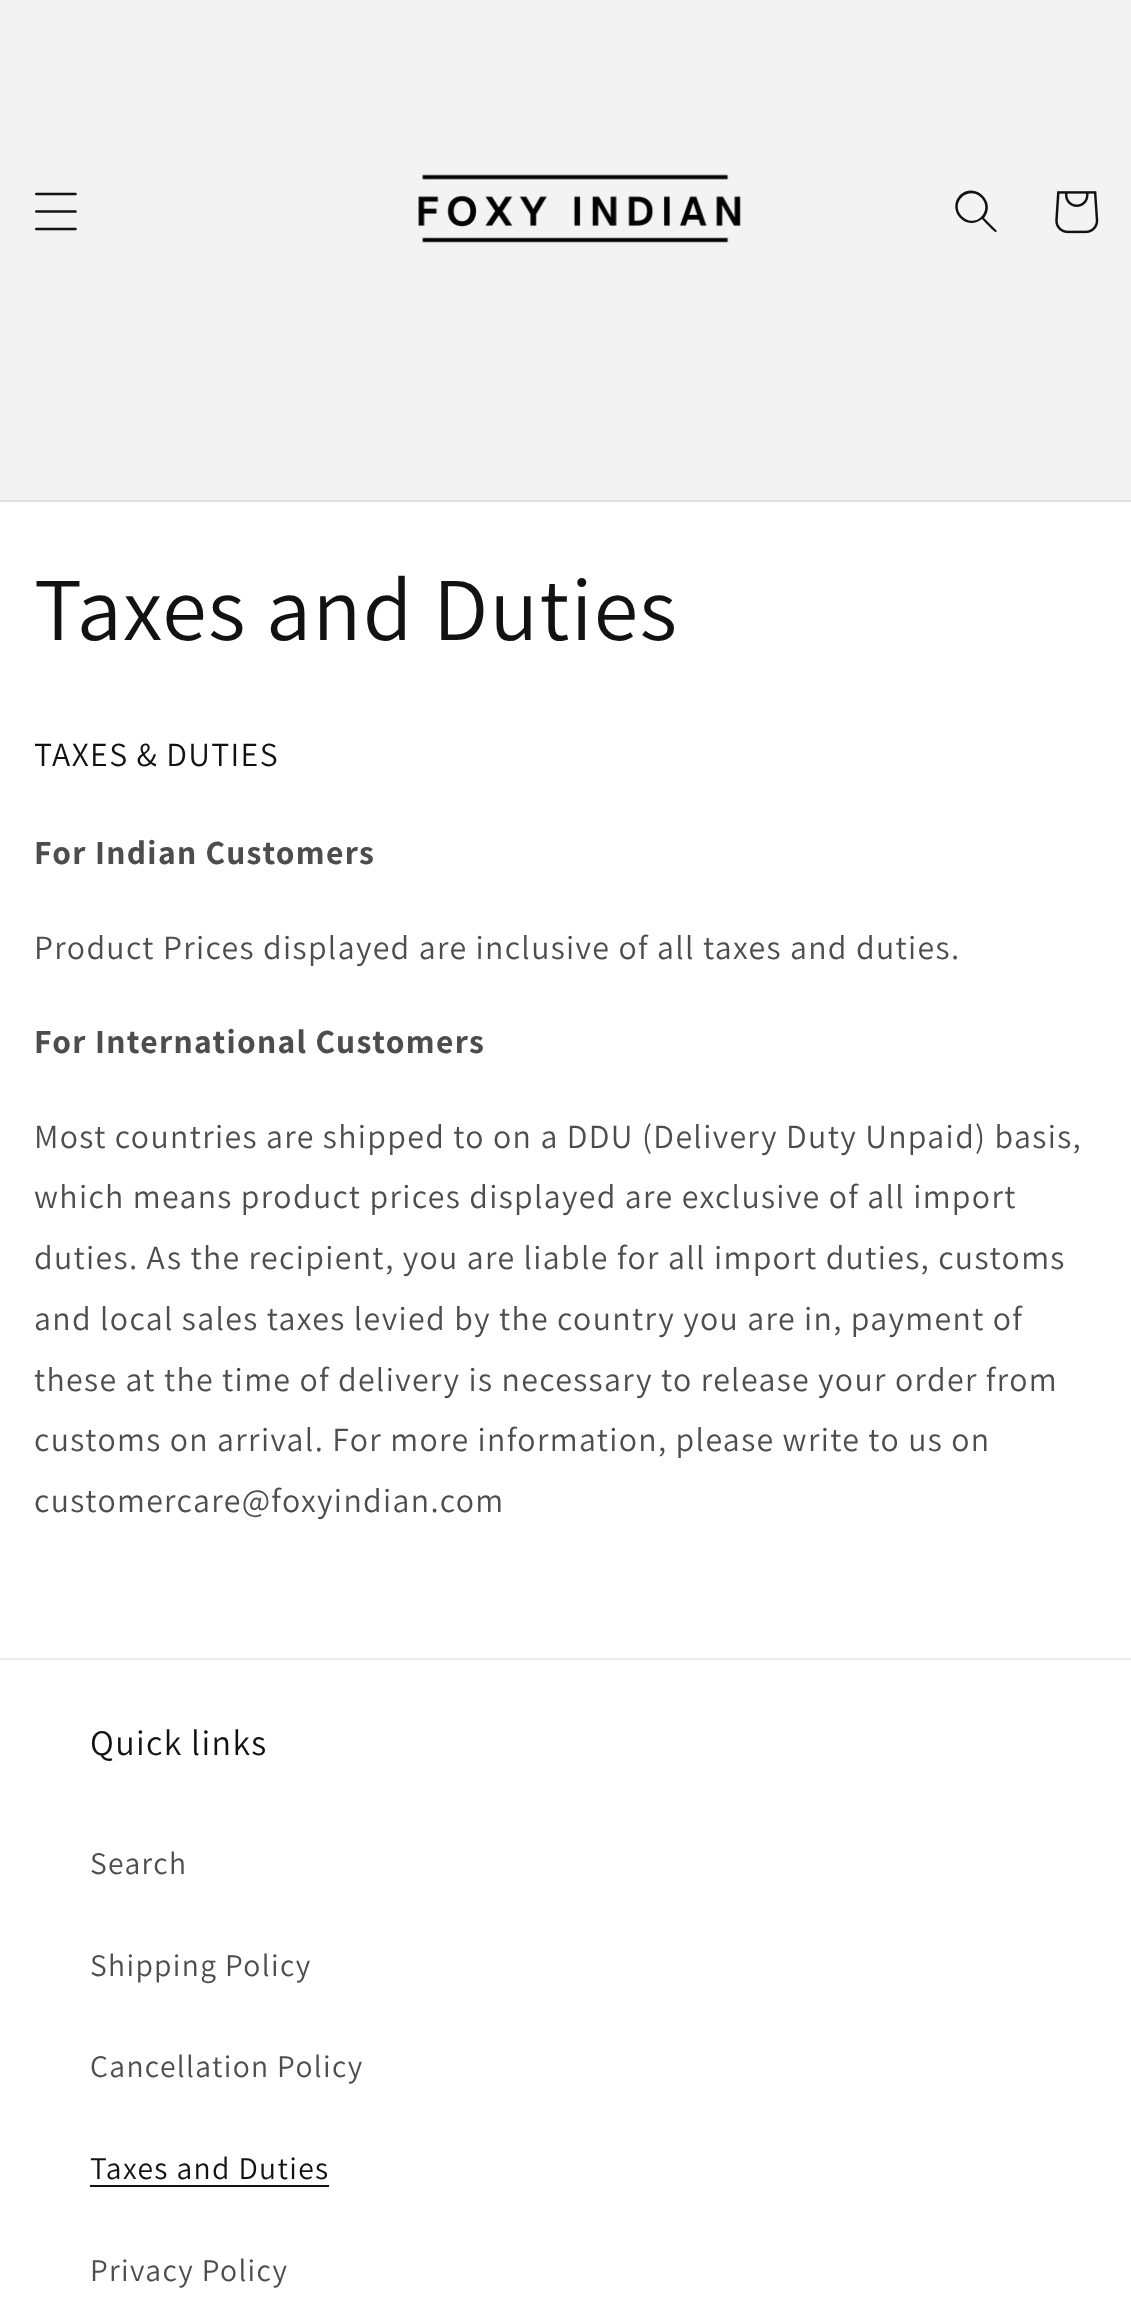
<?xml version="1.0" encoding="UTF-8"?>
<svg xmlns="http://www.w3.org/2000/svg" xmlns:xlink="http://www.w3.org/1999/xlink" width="1131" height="2299">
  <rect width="100%" height="100%" fill="#ffffff" />
  <rect width="1131" height="500" fill="#f3f3f3" />
  <rect y="500" width="1131" height="2" fill="#e1e1e1" />
  <image x="35" y="192" width="42" height="39" xlink:href="image1.png" />
  <image x="418" y="174" width="323" height="69" xlink:href="image2.png" />
  <path d="M 981 217 c -12 12 -32 -7 -19 -20 c 13 -12 32 7 19 20 z m 1 2 c -16 13 -36 -9 -22 -24 c 15 -14 37 7 24 23 l 13 13 l -1 1 c -1 1 -12 -11 -14 -13 z" fill="#121212" fill-rule="evenodd" />
  <image x="1055" y="191" width="44" height="43" xlink:href="image3.png" />
  <rect y="1658" width="1131" height="2" fill="#ececec" />
  <rect x="90" y="2185" width="239" height="2" fill="#121212" />
  <text x="34" y="640" style="font-family: Assistant; font-size: 90px; letter-spacing: 1.35px; fill: #121212">Taxes and Duties</text>
  <text x="34" y="766" style="font-family: Assistant; font-size: 33.75px; letter-spacing: 1.35px; fill: #121212">TAXES &amp; DUTIES</text>
  <text x="34" y="864" style="font-family: Assistant; font-size: 33.75px; font-weight: bold; letter-spacing: 1.35px; fill: #4d4d4d">For Indian Customers</text>
  <text x="34" y="959" style="font-family: Assistant; font-size: 33.75px; letter-spacing: 1.35px; fill: #4d4d4d">Product Prices displayed are inclusive of all taxes and duties.</text>
  <text x="34" y="1053" style="font-family: Assistant; font-size: 33.75px; font-weight: bold; letter-spacing: 1.35px; fill: #4d4d4d">For International Customers</text>
  <text x="34" y="1148" style="font-family: Assistant; font-size: 33.75px; letter-spacing: 1.35px; fill: #4d4d4d">Most countries are shipped to on a DDU (Delivery Duty Unpaid) basis,</text>
  <text x="34" y="1208" style="font-family: Assistant; font-size: 33.75px; letter-spacing: 1.35px; fill: #4d4d4d">which means product prices displayed are exclusive of all import</text>
  <text x="34" y="1269" style="font-family: Assistant; font-size: 33.75px; letter-spacing: 1.35px; fill: #4d4d4d">duties. As the recipient, you are liable for all import duties, customs</text>
  <text x="34" y="1330" style="font-family: Assistant; font-size: 33.75px; letter-spacing: 1.35px; fill: #4d4d4d">and local sales taxes levied by the country you are in, payment of</text>
  <text x="34" y="1391" style="font-family: Assistant; font-size: 33.75px; letter-spacing: 1.35px; fill: #4d4d4d">these at the time of delivery is necessary to release your order from</text>
  <text x="34" y="1451" style="font-family: Assistant; font-size: 33.75px; letter-spacing: 1.35px; fill: #4d4d4d">customs on arrival. For more information, please write to us on</text>
  <text x="34" y="1512" style="font-family: Assistant; font-size: 33.75px; letter-spacing: 1.35px; fill: #4d4d4d">customercare@foxyindian.com</text>
  <text x="90" y="1755" style="font-family: Assistant; font-size: 36px; letter-spacing: 1.35px; fill: #121212">Quick links</text>
  <text x="90" y="1874" style="font-family: Assistant; font-size: 31.5px; letter-spacing: 1.35px; fill: #4d4d4d">Search</text>
  <text x="90" y="1976" style="font-family: Assistant; font-size: 31.5px; letter-spacing: 1.35px; fill: #4d4d4d">Shipping Policy</text>
  <text x="90" y="2077" style="font-family: Assistant; font-size: 31.5px; letter-spacing: 1.35px; fill: #4d4d4d">Cancellation Policy</text>
  <text x="90" y="2179" style="font-family: Assistant; font-size: 31.5px; letter-spacing: 1.35px; fill: #121212">Taxes and Duties</text>
  <text x="90" y="2281" style="font-family: Assistant; font-size: 31.5px; letter-spacing: 1.35px; fill: #4d4d4d">Privacy Policy</text>
</svg>
